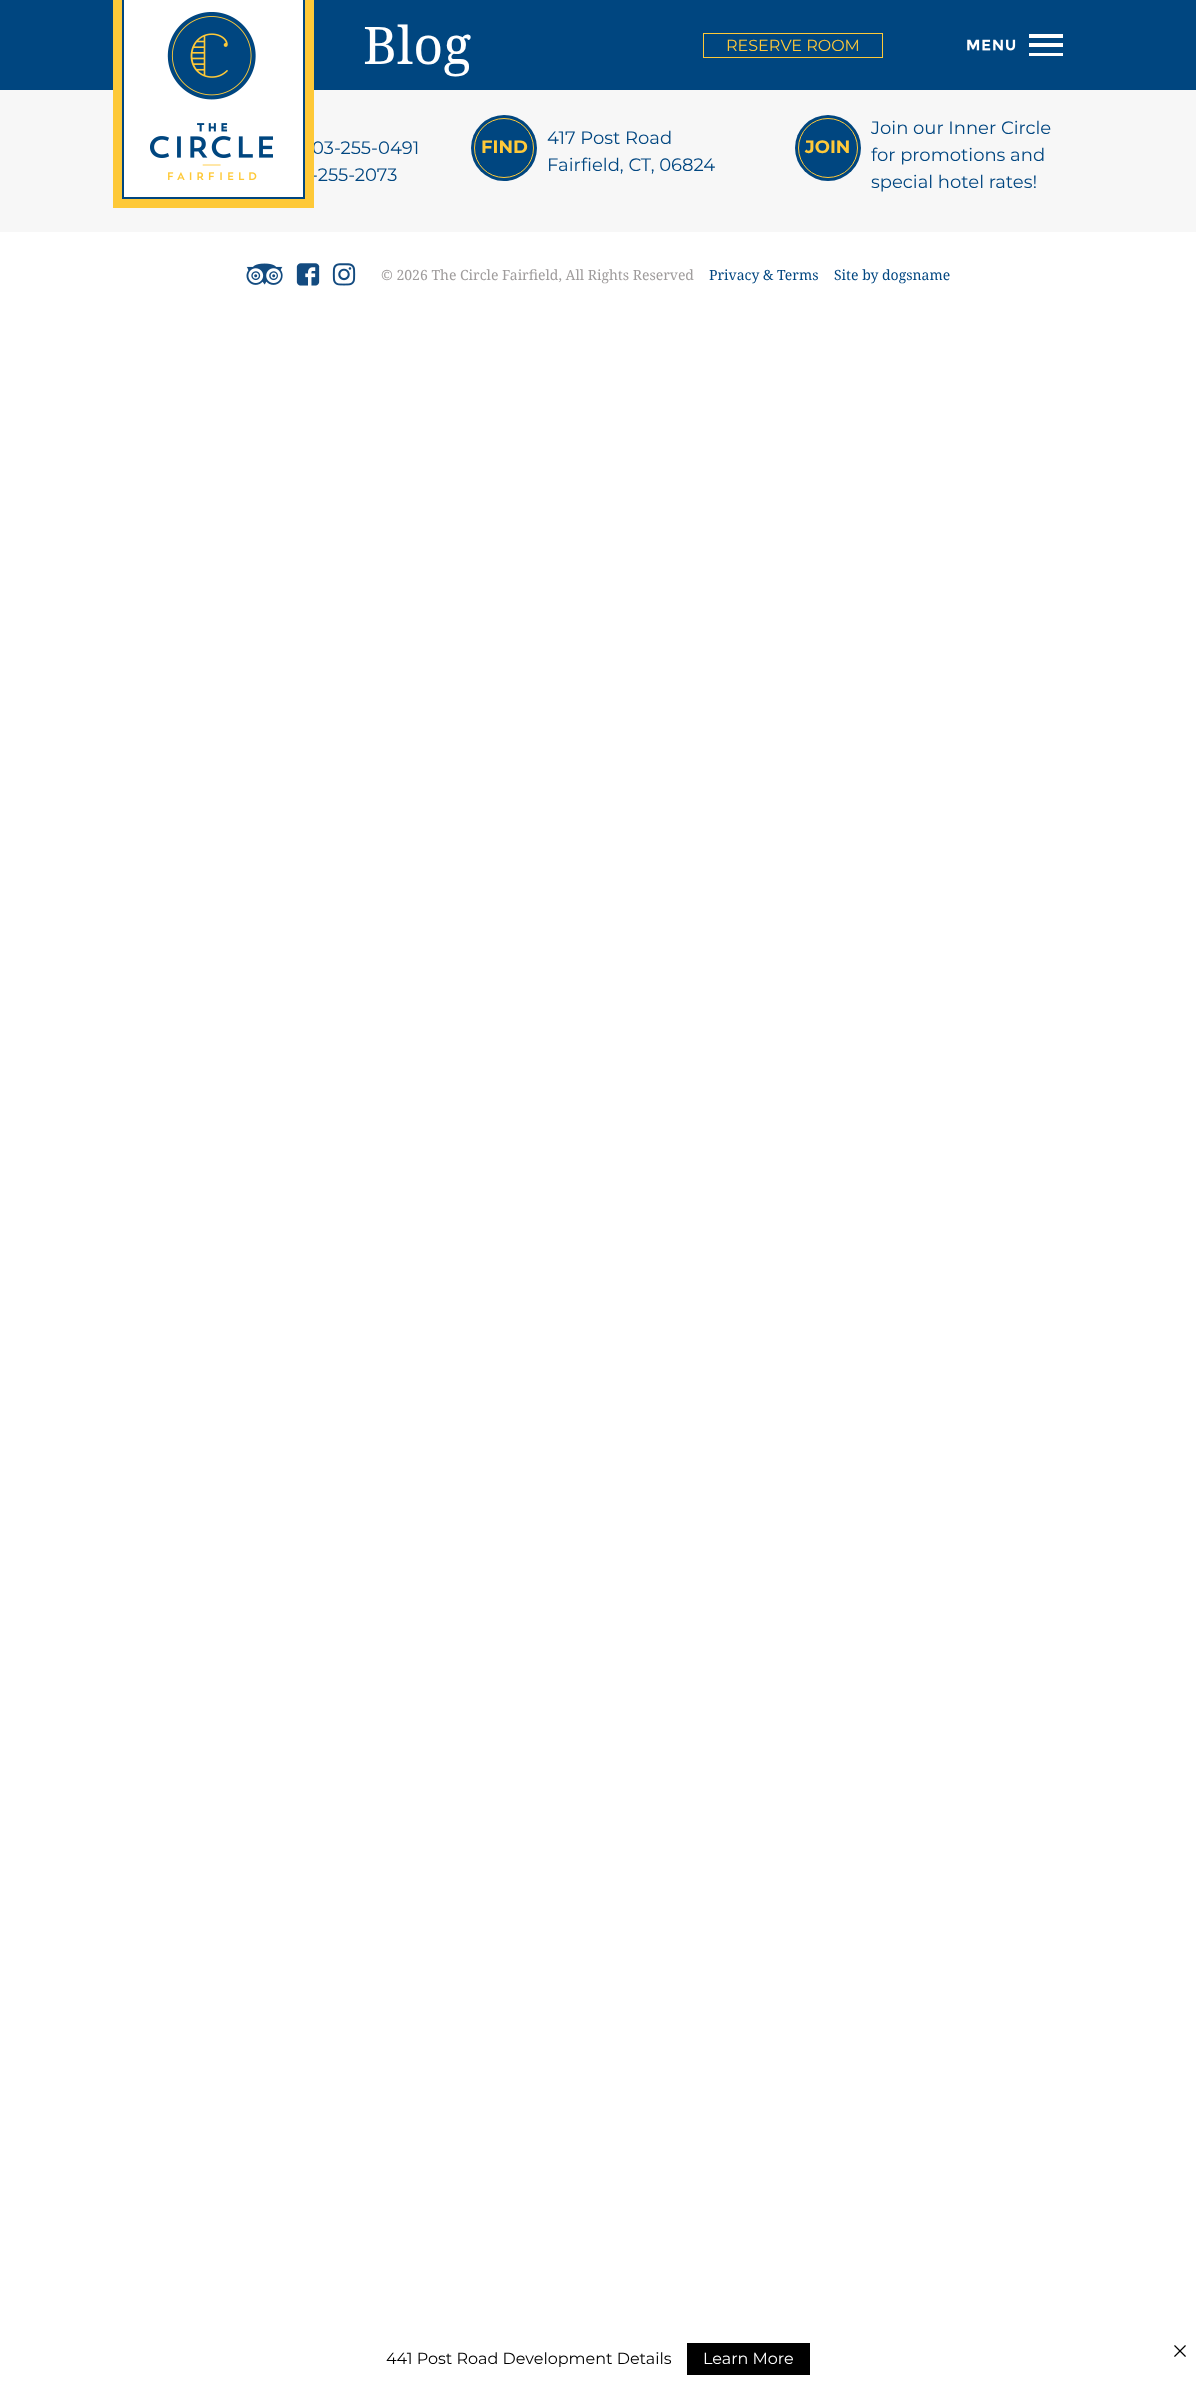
<?xml version="1.0" encoding="UTF-8"?>
<svg xmlns="http://www.w3.org/2000/svg" xmlns:xlink="http://www.w3.org/1999/xlink" width="1196" height="2383">
  <rect width="100%" height="100%" fill="#ffffff" />
  <rect width="1196" height="90" fill="#004680" />
  <rect x="703.5" y="33.5" width="179" height="24" fill="none" stroke="#fec938" />
  <image x="967" y="34" width="96" height="22" xlink:href="image2.png" />
  <rect y="90" width="1196" height="142" fill="#f7f7f7" />
  <circle cx="504" cy="148" r="33" fill="#004680" />
  <circle cx="504" cy="148" r="29.5" fill="none" stroke="#ffc939" />
  <circle cx="828" cy="148" r="33" fill="#004680" />
  <circle cx="828" cy="148" r="29.5" fill="none" stroke="#ffc939" />
  <image x="246" y="263" width="37" height="22" xlink:href="image3.png" />
  <image x="296" y="263" width="24" height="23" xlink:href="image4.png" />
  <image x="332" y="263" width="24" height="23" xlink:href="image5.png" />
  <rect x="687" y="2343" width="123" height="32" fill="#000000" />
  <image x="1174" y="2345" width="12" height="12" xlink:href="image6.png" />
  <text x="363" y="64" style="font-family: Noto Serif; font-size: 52px; fill: #ffffff">Blog</text>
  <text x="726" y="51" style="font-family: Montserrat; font-size: 16px; fill: #ffc939">RESERVE ROOM</text>
  <text x="312" y="154" style="font-family: Montserrat; font-size: 18px; fill: #004680">03-255-0491</text>
  <text x="311" y="181" style="font-family: Montserrat; font-size: 18px; fill: #004680">-255-2073</text>
  <image x="113" y="0" width="201" height="208" xlink:href="image1.png" />
  <text x="481" y="153" style="font-family: Montserrat; font-size: 18px; font-weight: bold; fill: #ffc939">FIND</text>
  <text x="547" y="144" style="font-family: Montserrat; font-size: 18px; fill: #004680">417 Post Road</text>
  <text x="547" y="171" style="font-family: Montserrat; font-size: 18px; fill: #004680">Fairfield, CT, 06824</text>
  <text x="805" y="153" style="font-family: Montserrat; font-size: 18px; font-weight: bold; fill: #ffc939">JOIN</text>
  <text x="871" y="134" style="font-family: Montserrat; font-size: 18px; fill: #004680">Join our Inner Circle</text>
  <text x="871" y="161" style="font-family: Montserrat; font-size: 18px; fill: #004680">for promotions and</text>
  <text x="871" y="188" style="font-family: Montserrat; font-size: 18px; fill: #004680">special hotel rates!</text>
  <text x="381" y="280" style="font-family: Noto Serif; font-size: 14px; fill: #9f9c9c">© 2026 The Circle Fairfield, All Rights Reserved</text>
  <text x="709" y="280" style="font-family: Noto Serif; font-size: 14px; fill: #004680">Privacy &amp; Terms</text>
  <text x="834" y="280" style="font-family: Noto Serif; font-size: 14px; fill: #004680">Site by dogsname</text>
  <text x="386" y="2364" style="font-family: Montserrat; font-size: 16px; fill: #000000">441 Post Road Development Details</text>
  <text x="703" y="2364" style="font-family: Montserrat; font-size: 16px; fill: #ffffff">Learn More</text>
</svg>
